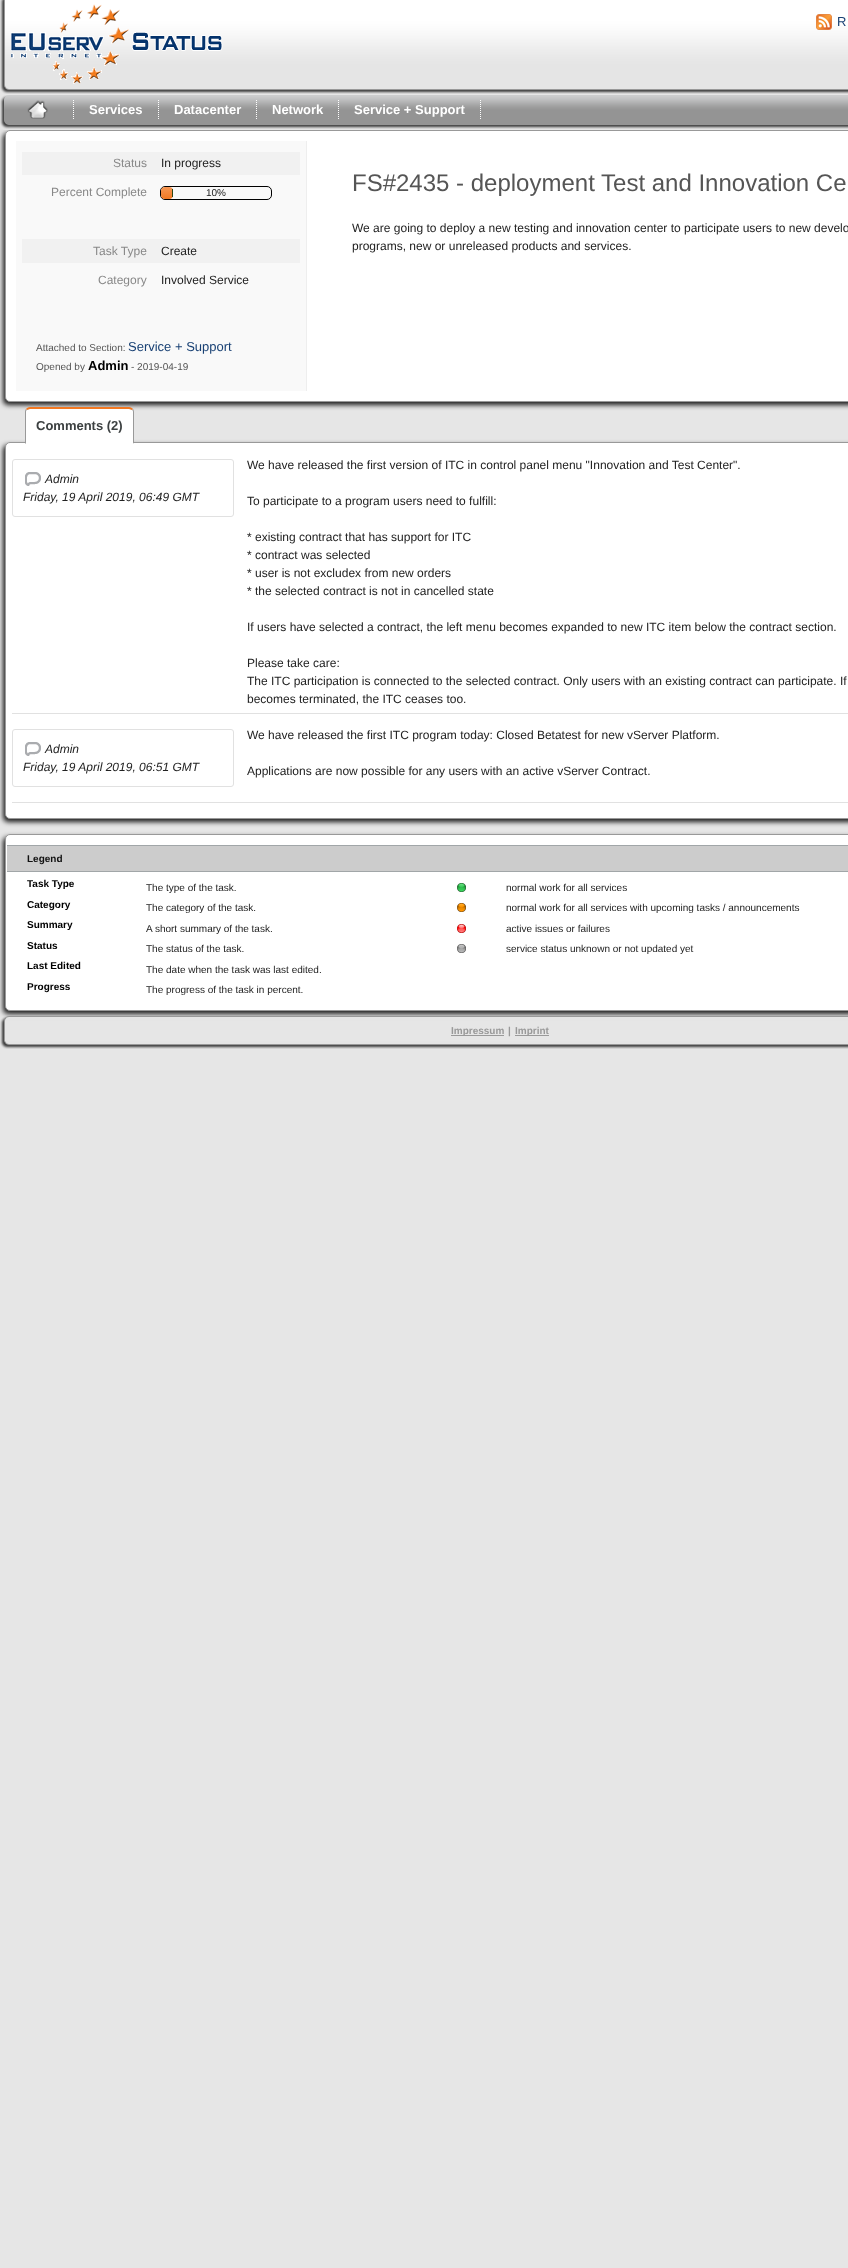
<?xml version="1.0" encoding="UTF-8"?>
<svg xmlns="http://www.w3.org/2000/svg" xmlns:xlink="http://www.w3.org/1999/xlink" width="848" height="2268">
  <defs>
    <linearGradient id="g1" gradientUnits="userSpaceOnUse" x1="167" y1="187" x2="167" y2="199"><stop offset="0" stop-color="#f69754" /><stop offset="1" stop-color="#f27822" /></linearGradient>
  </defs>
  <rect width="100%" height="100%" fill="#e6e6e6" />
  <image x="0" y="0" width="848" height="94" xlink:href="image1.png" />
  <image x="11" y="4" width="212" height="80" xlink:href="image2.png" />
  <image x="816" y="14" width="16" height="16" xlink:href="image3.png" />
  <rect x="3" y="133" width="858" height="272" rx="5" fill="#1d1d1d" filter="blur(2.5px)" />
  <rect x="3" y="128" width="845" height="2" fill="#e5e5e5" />
  <image x="0" y="95" width="848" height="34" xlink:href="image4.png" />
  <path d="M 73.5 100 v 20" fill="none" stroke="#ffffff" stroke-dasharray="1 1" />
  <image x="27" y="100" width="21" height="19" xlink:href="image5.png" />
  <path d="M 158.5 100 v 20" fill="none" stroke="#ffffff" stroke-dasharray="1 1" />
  <path d="M 256.5 100 v 20" fill="none" stroke="#ffffff" stroke-dasharray="1 1" />
  <path d="M 338.5 100 v 20" fill="none" stroke="#ffffff" stroke-dasharray="1 1" />
  <path d="M 480.5 100 v 20" fill="none" stroke="#ffffff" stroke-dasharray="1 1" />
  <rect x="5.5" y="130.5" width="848" height="271" rx="4.5" fill="#ffffff" stroke="#999999" />
  <rect x="16" y="141" width="290" height="250" fill="#f9f9f9" />
  <rect x="306" y="141" width="1" height="250" fill="#eeeeee" />
  <rect x="22" y="152" width="278" height="23" fill="#f1f1f1" />
  <rect x="160.5" y="186.5" width="111" height="13" rx="4.5" fill="none" stroke="#000000" />
  <rect x="161" y="187" width="12" height="12" rx="4" fill="url(#g1)" />
  <rect x="172" y="189" width="1" height="8" fill="#2d4713" />
  <rect x="22" y="239" width="278" height="24" fill="#f1f1f1" />
  <rect x="3" y="445" width="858" height="377" rx="5" fill="#1d1d1d" filter="blur(2.5px)" />
  <rect x="5.5" y="442.5" width="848" height="376" rx="4.5" fill="#ffffff" stroke="#999999" />
  <path d="M 30 409 h 99 c 2 0 4 1 4 3 v 31 h -107 v -31 c 0 -2 2 -3 4 -3 z" fill="#ffffff" />
  <path d="M 30 407 c -2 0 -3 1 -4 2 l 1 1 l 3 -1 h 99 l 3 1 l 1 -1 c -1 -1 -2 -2 -4 -2 z" fill="#f27822" />
  <path d="M 134 444 v -32 c 0 -1 -0.5 -2.5 -1 -3 l -0.5 1.5 c 0.5 0 0.5 1 0.5 1.5 v 31 z" fill="#999999" />
  <path d="M 134 444 l -1 -1 h -107 l -1 1 z" fill="#ffffff" />
  <path d="M 25 444 l 1 -1 v -31 c 0 -0.5 0 -1.5 0.5 -1.5 l -0.5 -1.5 c -0.5 0.5 -1 2 -1 3 z" fill="#999999" />
  <rect x="12" y="713" width="836" height="1" fill="#e1e1e1" />
  <rect x="12.5" y="459.5" width="221" height="57" rx="2.5" fill="none" stroke="#e1e1e1" />
  <image x="25" y="472" width="16" height="14" xlink:href="image6.png" />
  <rect x="12" y="802" width="836" height="1" fill="#e1e1e1" />
  <rect x="12.5" y="729.5" width="221" height="57" rx="2.5" fill="none" stroke="#e1e1e1" />
  <image x="25" y="742" width="16" height="14" xlink:href="image6.png" />
  <rect x="3" y="837" width="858" height="177" rx="5" fill="#1d1d1d" filter="blur(2.5px)" />
  <rect x="5.5" y="834.5" width="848" height="176" rx="4.5" fill="#ffffff" stroke="#999999" />
  <rect x="7" y="846" width="841" height="25" fill="#cccccc" />
  <rect x="7" y="845" width="841" height="1" fill="#a1a6a8" />
  <rect x="7" y="871" width="841" height="1" fill="#a1a6a8" />
  <image x="457" y="883" width="9" height="9" xlink:href="image7.png" />
  <image x="457" y="903" width="9" height="9" xlink:href="image8.png" />
  <image x="457" y="924" width="9" height="9" xlink:href="image9.png" />
  <image x="457" y="944" width="9" height="9" xlink:href="image10.png" />
  <image x="0" y="1016" width="848" height="5" xlink:href="image11.png" />
  <image x="0" y="1021" width="5" height="20" xlink:href="image12.png" />
  <rect x="451" y="1035" width="53" height="1" fill="#999999" />
  <rect x="515" y="1035" width="34" height="1" fill="#999999" />
  <image x="0" y="1041" width="848" height="8" xlink:href="image13.png" />
  <text x="837" y="26" style="font-family: Liberation Sans; font-size: 13px; fill: #194174">R</text>
  <text x="89" y="114" style="font-family: Liberation Sans; font-size: 13px; font-weight: bold; fill: #ffffff">Services</text>
  <text x="174" y="114" style="font-family: Liberation Sans; font-size: 13px; font-weight: bold; fill: #ffffff">Datacenter</text>
  <text x="272" y="114" style="font-family: Liberation Sans; font-size: 13px; font-weight: bold; fill: #ffffff">Network</text>
  <text x="354" y="114" style="font-family: Liberation Sans; font-size: 13px; font-weight: bold; fill: #ffffff">Service + Support</text>
  <text x="113" y="167" style="font-family: Liberation Sans; font-size: 12px; fill: #888888">Status</text>
  <text x="161" y="167" style="font-family: Liberation Sans; font-size: 12px; fill: #222222">In progress</text>
  <text x="51" y="196" style="font-family: Liberation Sans; font-size: 12px; fill: #888888">Percent Complete</text>
  <text x="206" y="196" style="font-family: Liberation Sans; font-size: 10px; fill: #222222">10%</text>
  <text x="93" y="255" style="font-family: Liberation Sans; font-size: 12px; fill: #888888">Task Type</text>
  <text x="161" y="255" style="font-family: Liberation Sans; font-size: 12px; fill: #222222">Create</text>
  <text x="98" y="284" style="font-family: Liberation Sans; font-size: 12px; fill: #888888">Category</text>
  <text x="161" y="284" style="font-family: Liberation Sans; font-size: 12px; fill: #222222">Involved Service</text>
  <text x="36" y="351" style="font-family: Liberation Sans; font-size: 10px; fill: #555555">Attached to Section:</text>
  <text x="128" y="351" style="font-family: Liberation Sans; font-size: 13px; fill: #194174">Service + Support</text>
  <text x="36" y="370" style="font-family: Liberation Sans; font-size: 10px; fill: #555555">Opened by</text>
  <text x="88" y="370" style="font-family: Liberation Sans; font-size: 13px; font-weight: bold; fill: #000000">Admin</text>
  <text x="131" y="370" style="font-family: Liberation Sans; font-size: 10px; fill: #555555">- 2019-04-19</text>
  <text x="352" y="191" style="font-family: Liberation Sans; font-size: 24px; fill: #555555">FS#2435 - deployment Test and Innovation Ce</text>
  <text x="352" y="232" style="font-family: Liberation Sans; font-size: 12px; fill: #222222">We are going to deploy a new testing and innovation center to participate users to new develo</text>
  <text x="352" y="250" style="font-family: Liberation Sans; font-size: 12px; fill: #222222">programs, new or unreleased products and services.</text>
  <text x="36" y="430" style="font-family: Liberation Sans; font-size: 13px; font-weight: bold; fill: #3c4041">Comments (2)</text>
  <text x="45" y="483" style="font-family: Liberation Sans; font-size: 12px; font-style: italic; fill: #222222">Admin</text>
  <text x="23" y="501" style="font-family: Liberation Sans; font-size: 12px; font-style: italic; fill: #222222">Friday, 19 April 2019, 06:49 GMT</text>
  <text x="247" y="469" style="font-family: Liberation Sans; font-size: 12px; fill: #222222">We have released the first version of ITC in control panel menu "Innovation and Test Center".</text>
  <text x="247" y="505" style="font-family: Liberation Sans; font-size: 12px; fill: #222222">To participate to a program users need to fulfill:</text>
  <text x="247" y="541" style="font-family: Liberation Sans; font-size: 12px; fill: #222222">* existing contract that has support for ITC</text>
  <text x="247" y="559" style="font-family: Liberation Sans; font-size: 12px; fill: #222222">* contract was selected</text>
  <text x="247" y="577" style="font-family: Liberation Sans; font-size: 12px; fill: #222222">* user is not excludex from new orders</text>
  <text x="247" y="595" style="font-family: Liberation Sans; font-size: 12px; fill: #222222">* the selected contract is not in cancelled state</text>
  <text x="247" y="631" style="font-family: Liberation Sans; font-size: 12px; fill: #222222">If users have selected a contract, the left menu becomes expanded to new ITC item below the contract section.</text>
  <text x="247" y="667" style="font-family: Liberation Sans; font-size: 12px; fill: #222222">Please take care:</text>
  <text x="247" y="685" style="font-family: Liberation Sans; font-size: 12px; fill: #222222">The ITC participation is connected to the selected contract. Only users with an existing contract can participate. If</text>
  <text x="247" y="703" style="font-family: Liberation Sans; font-size: 12px; fill: #222222">becomes terminated, the ITC ceases too.</text>
  <text x="45" y="753" style="font-family: Liberation Sans; font-size: 12px; font-style: italic; fill: #222222">Admin</text>
  <text x="23" y="771" style="font-family: Liberation Sans; font-size: 12px; font-style: italic; fill: #222222">Friday, 19 April 2019, 06:51 GMT</text>
  <text x="247" y="739" style="font-family: Liberation Sans; font-size: 12px; fill: #222222">We have released the first ITC program today: Closed Betatest for new vServer Platform.</text>
  <text x="247" y="775" style="font-family: Liberation Sans; font-size: 12px; fill: #222222">Applications are now possible for any users with an active vServer Contract.</text>
  <text x="27" y="862" style="font-family: Liberation Sans; font-size: 10px; font-weight: bold; fill: #111111">Legend</text>
  <text x="27" y="887" style="font-family: Liberation Sans; font-size: 10px; font-weight: bold; fill: #000000">Task Type</text>
  <text x="146" y="891" style="font-family: Liberation Sans; font-size: 10px; fill: #222222">The type of the task.</text>
  <text x="506" y="891" style="font-family: Liberation Sans; font-size: 10px; fill: #222222">normal work for all services</text>
  <text x="27" y="908" style="font-family: Liberation Sans; font-size: 10px; font-weight: bold; fill: #000000">Category</text>
  <text x="146" y="911" style="font-family: Liberation Sans; font-size: 10px; fill: #222222">The category of the task.</text>
  <text x="506" y="911" style="font-family: Liberation Sans; font-size: 10px; fill: #222222">normal work for all services with upcoming tasks / announcements</text>
  <text x="27" y="928" style="font-family: Liberation Sans; font-size: 10px; font-weight: bold; fill: #000000">Summary</text>
  <text x="146" y="932" style="font-family: Liberation Sans; font-size: 10px; fill: #222222">A short summary of the task.</text>
  <text x="506" y="932" style="font-family: Liberation Sans; font-size: 10px; fill: #222222">active issues or failures</text>
  <text x="27" y="949" style="font-family: Liberation Sans; font-size: 10px; font-weight: bold; fill: #000000">Status</text>
  <text x="146" y="952" style="font-family: Liberation Sans; font-size: 10px; fill: #222222">The status of the task.</text>
  <text x="506" y="952" style="font-family: Liberation Sans; font-size: 10px; fill: #222222">service status unknown or not updated yet</text>
  <text x="27" y="969" style="font-family: Liberation Sans; font-size: 10px; font-weight: bold; fill: #000000">Last Edited</text>
  <text x="146" y="973" style="font-family: Liberation Sans; font-size: 10px; fill: #222222">The date when the task was last edited.</text>
  <text x="27" y="990" style="font-family: Liberation Sans; font-size: 10px; font-weight: bold; fill: #000000">Progress</text>
  <text x="146" y="993" style="font-family: Liberation Sans; font-size: 10px; fill: #222222">The progress of the task in percent.</text>
  <text x="451" y="1034" style="font-family: Liberation Sans; font-size: 10px; font-weight: bold; fill: #999999">Impressum</text>
  <text x="508" y="1034" style="font-family: Liberation Sans; font-size: 10px; font-weight: bold; fill: #999999">|</text>
  <text x="515" y="1034" style="font-family: Liberation Sans; font-size: 10px; font-weight: bold; fill: #999999">Imprint</text>
</svg>
